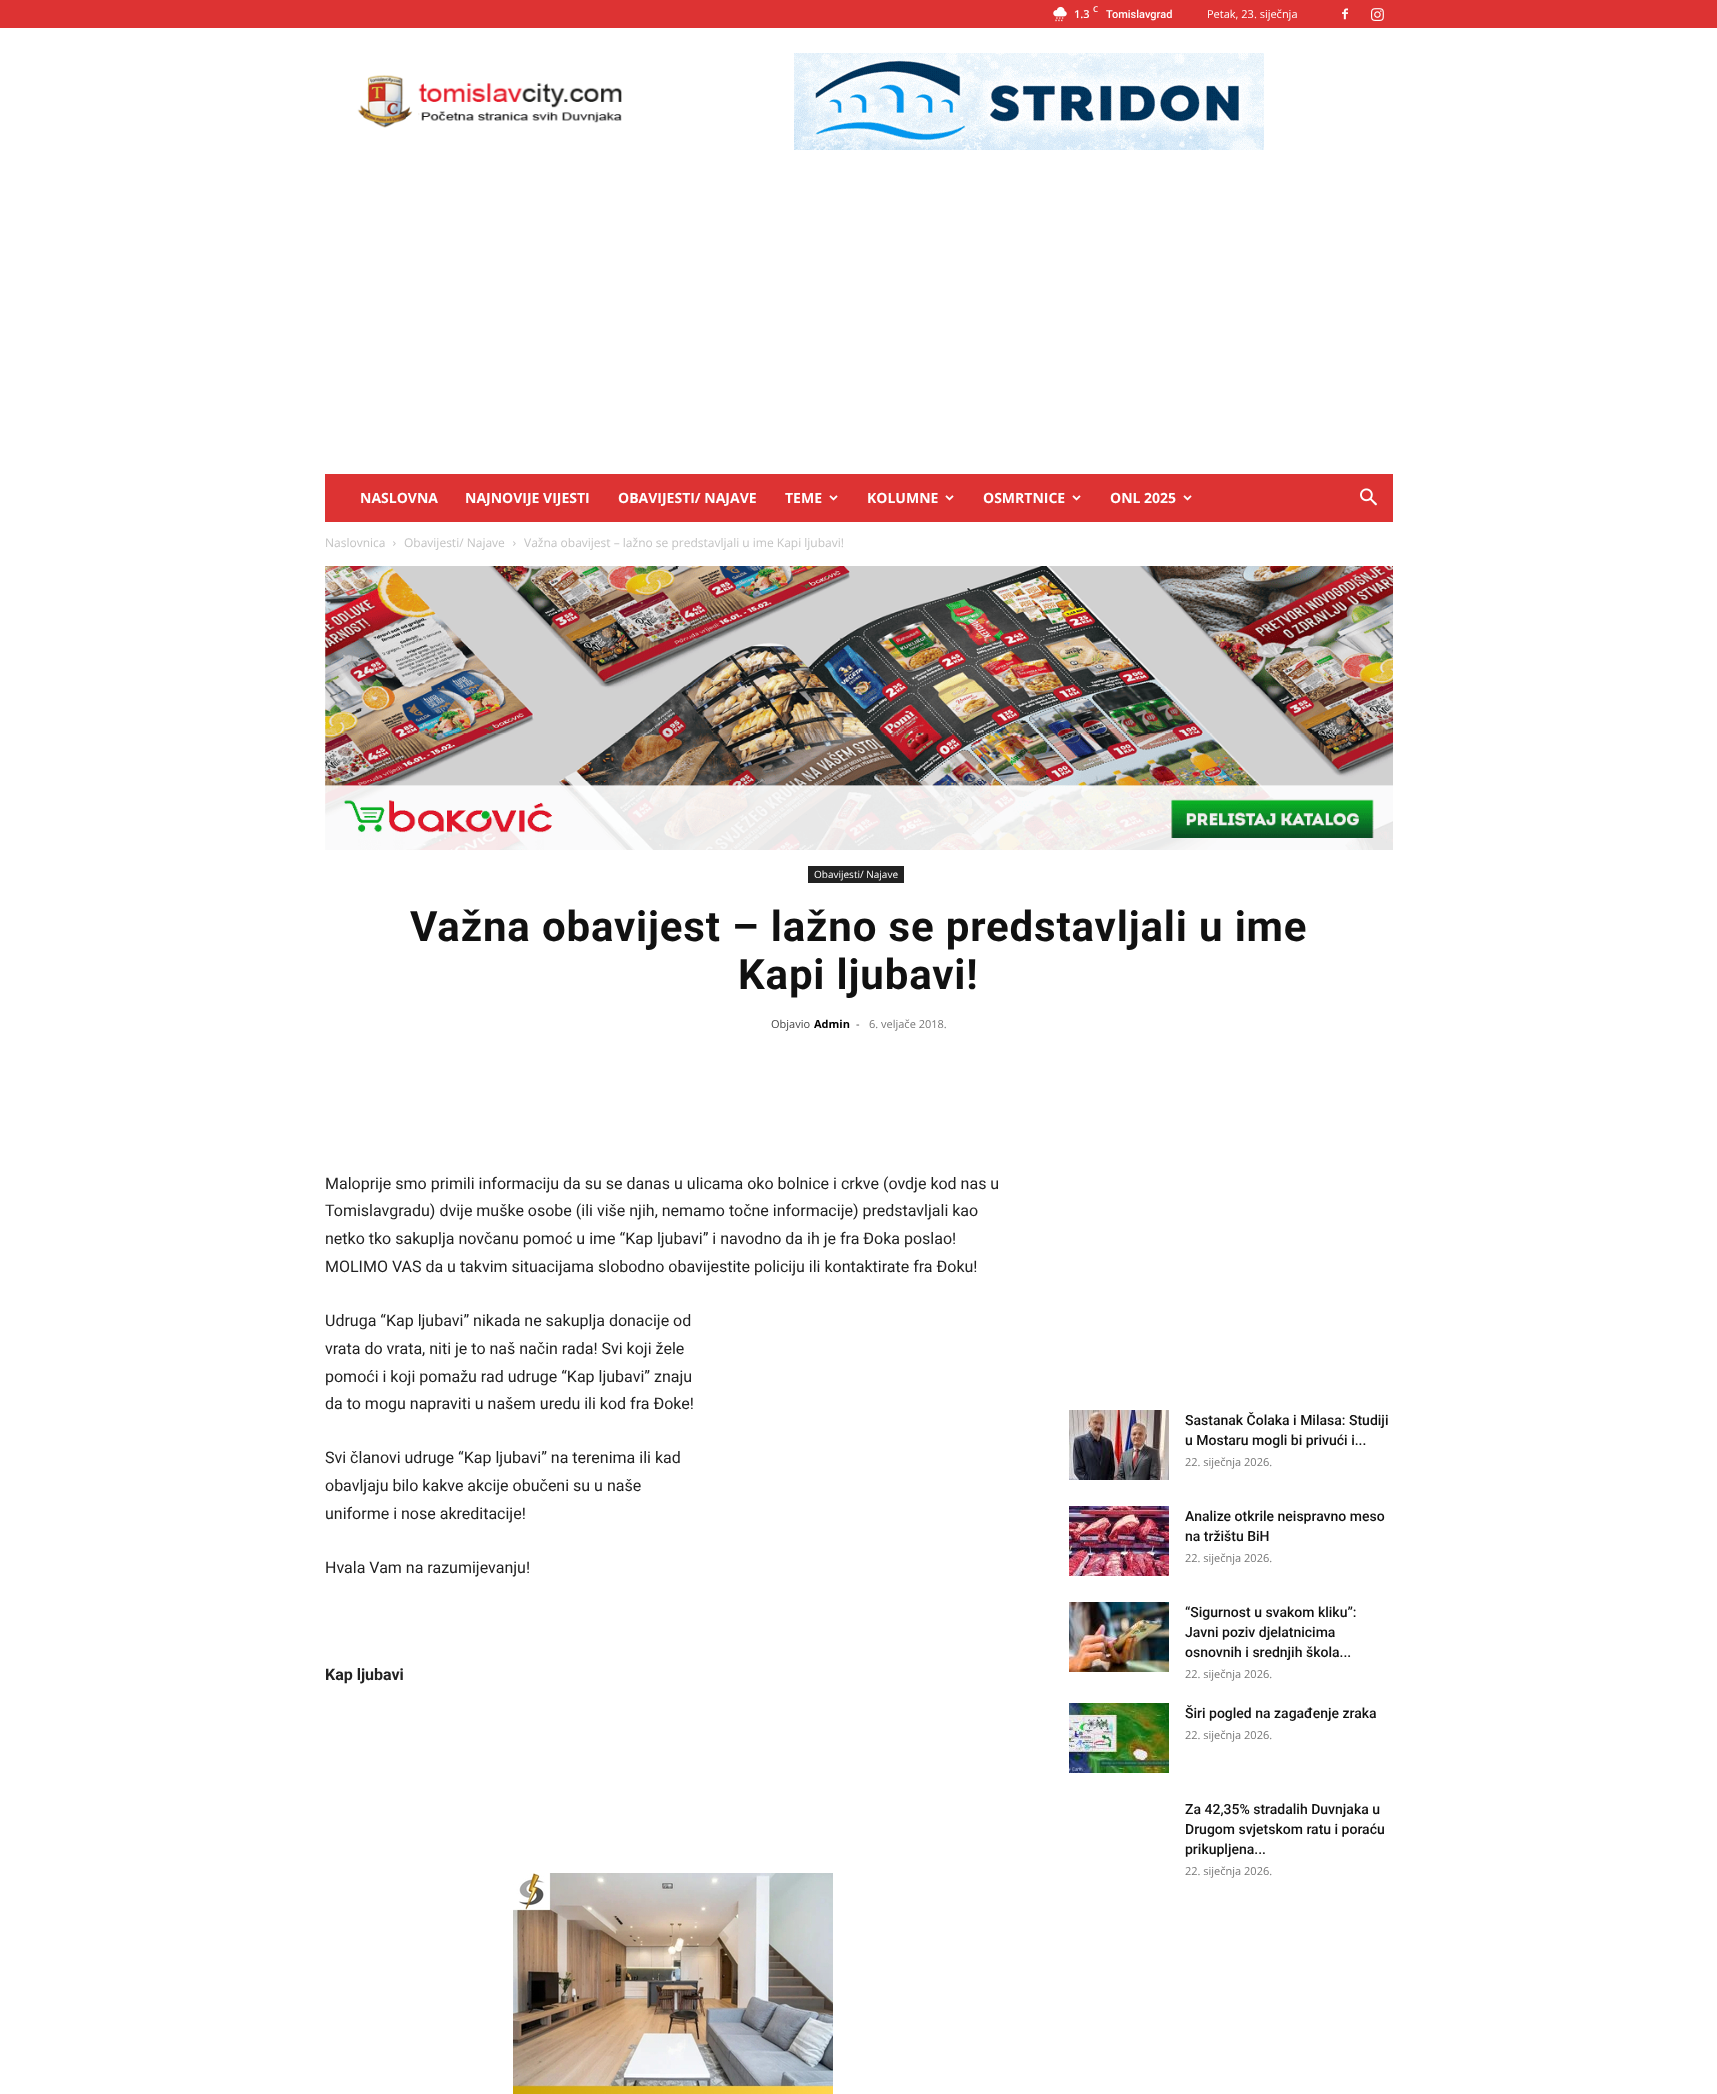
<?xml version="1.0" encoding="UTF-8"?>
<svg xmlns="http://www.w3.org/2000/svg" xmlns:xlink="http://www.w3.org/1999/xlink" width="1717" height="2094">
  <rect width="100%" height="100%" fill="#ffffff" />
  <rect width="1717" height="28" fill="#dd3333" />
  <image x="1053" y="6" width="14" height="16" xlink:href="image1.png" />
  <image x="1342" y="8" width="6" height="12" xlink:href="image2.png" />
  <image x="1371" y="8" width="13" height="13" xlink:href="image3.png" />
  <image x="357" y="75" width="265" height="53" xlink:href="image4.png" />
  <image x="794" y="53" width="470" height="97" xlink:href="image5.png" />
  <rect x="325" y="474" width="1068" height="48" fill="#dd3333" />
  <image x="829" y="495" width="9" height="6" xlink:href="image6.png" />
  <image x="945" y="495" width="9" height="6" xlink:href="image6.png" />
  <image x="1072" y="495" width="9" height="6" xlink:href="image6.png" />
  <image x="1183" y="495" width="9" height="6" xlink:href="image6.png" />
  <image x="1360" y="488" width="17" height="18" xlink:href="image7.png" />
  <image x="393" y="541" width="3" height="5" xlink:href="image8.png" />
  <image x="513" y="541" width="3" height="5" xlink:href="image8.png" />
  <image x="325" y="566" width="1068" height="284" xlink:href="image9.png" />
  <rect x="808" y="866" width="96" height="17" fill="#222222" />
  <image x="513" y="1873" width="320" height="221" xlink:href="image10.png" />
  <image x="1069" y="1410" width="100" height="70" xlink:href="image11.png" />
  <image x="1069" y="1506" width="100" height="70" xlink:href="image12.png" />
  <image x="1069" y="1602" width="100" height="70" xlink:href="image13.png" />
  <image x="1069" y="1703" width="100" height="70" xlink:href="image14.png" />
  <text x="1074" y="18" style="font-family: Open Sans; font-size: 11px; font-weight: 600; fill: #ffffff">1.3</text>
  <text x="1093" y="12" style="font-family: Open Sans; font-size: 8px; font-weight: 600; fill: #ffffff">C</text>
  <text x="1106" y="18" style="font-family: Roboto; font-size: 11px; font-weight: 500; fill: #ffffff">Tomislavgrad</text>
  <text x="1207" y="18" style="font-family: Open Sans; font-size: 11px; fill: #ffffff">Petak, 23. siječnja</text>
  <text x="360" y="503" style="font-family: Open Sans; font-size: 14px; font-weight: bold; fill: #ffffff">NASLOVNA</text>
  <text x="465" y="503" style="font-family: Open Sans; font-size: 14px; font-weight: bold; fill: #ffffff">NAJNOVIJE VIJESTI</text>
  <text x="618" y="503" style="font-family: Open Sans; font-size: 14px; font-weight: bold; fill: #ffffff">OBAVIJESTI/ NAJAVE</text>
  <text x="785" y="503" style="font-family: Open Sans; font-size: 14px; font-weight: bold; fill: #ffffff">TEME</text>
  <text x="867" y="503" style="font-family: Open Sans; font-size: 14px; font-weight: bold; fill: #ffffff">KOLUMNE</text>
  <text x="983" y="503" style="font-family: Open Sans; font-size: 14px; font-weight: bold; fill: #ffffff">OSMRTNICE</text>
  <text x="1110" y="503" style="font-family: Open Sans; font-size: 14px; font-weight: bold; fill: #ffffff">ONL 2025</text>
  <text x="325" y="547" style="font-family: Open Sans; font-size: 12px; fill: #c3c3c3">Naslovnica</text>
  <text x="404" y="547" style="font-family: Open Sans; font-size: 12px; fill: #c3c3c3">Obavijesti/ Najave</text>
  <text x="524" y="547" style="font-family: Open Sans; font-size: 12px; fill: #c3c3c3">Važna obavijest – lažno se predstavljali u ime Kapi ljubavi!</text>
  <text x="814" y="878" style="font-family: Open Sans; font-size: 10px; fill: #ffffff">Obavijesti/ Najave</text>
  <text x="410" y="941" style="font-family: Roboto; font-size: 42px; font-weight: bold; letter-spacing: 0.85px; fill: #111111">Važna obavijest – lažno se predstavljali u ime</text>
  <text x="738" y="989" style="font-family: Roboto; font-size: 42px; font-weight: bold; letter-spacing: 0.85px; fill: #111111">Kapi ljubavi!</text>
  <text x="771" y="1028" style="font-family: Open Sans; font-size: 11px; fill: #444444">Objavio</text>
  <text x="814" y="1028" style="font-family: Open Sans; font-size: 11px; font-weight: bold; fill: #000000">Admin</text>
  <text x="856" y="1028" style="font-family: Open Sans; font-size: 11px; fill: #444444">-</text>
  <text x="869" y="1028" style="font-family: Open Sans; font-size: 11px; fill: #767676">6. veljače 2018.</text>
  <text x="325" y="1189" style="font-family: Roboto; font-size: 16px; fill: #222222">Maloprije smo primili informaciju da su se danas u ulicama oko bolnice i crkve (ovdje kod nas u</text>
  <text x="325" y="1216" style="font-family: Roboto; font-size: 16px; fill: #222222">Tomislavgradu) dvije muške osobe (ili više njih, nemamo točne informacije) predstavljali kao</text>
  <text x="325" y="1244" style="font-family: Roboto; font-size: 16px; fill: #222222">netko tko sakuplja novčanu pomoć u ime “Kap ljubavi” i navodno da ih je fra Đoka poslao!</text>
  <text x="325" y="1272" style="font-family: Roboto; font-size: 16px; fill: #222222">MOLIMO VAS da u takvim situacijama slobodno obavijestite policiju ili kontaktirate fra Đoku!</text>
  <text x="325" y="1326" style="font-family: Roboto; font-size: 16px; fill: #222222">Udruga “Kap ljubavi” nikada ne sakuplja donacije od</text>
  <text x="325" y="1354" style="font-family: Roboto; font-size: 16px; fill: #222222">vrata do vrata, niti je to naš način rada! Svi koji žele</text>
  <text x="325" y="1382" style="font-family: Roboto; font-size: 16px; fill: #222222">pomoći i koji pomažu rad udruge “Kap ljubavi” znaju</text>
  <text x="325" y="1409" style="font-family: Roboto; font-size: 16px; fill: #222222">da to mogu napraviti u našem uredu ili kod fra Đoke!</text>
  <text x="325" y="1463" style="font-family: Roboto; font-size: 16px; fill: #222222">Svi članovi udruge “Kap ljubavi” na terenima ili kad</text>
  <text x="325" y="1491" style="font-family: Roboto; font-size: 16px; fill: #222222">obavljaju bilo kakve akcije obučeni su u naše</text>
  <text x="325" y="1519" style="font-family: Roboto; font-size: 16px; fill: #222222">uniforme i nose akreditacije!</text>
  <text x="325" y="1573" style="font-family: Roboto; font-size: 16px; fill: #222222">Hvala Vam na razumijevanju!</text>
  <text x="325" y="1680" style="font-family: Roboto; font-size: 16px; font-weight: bold; fill: #222222">Kap ljubavi</text>
  <text x="1185" y="1425" style="font-family: Roboto; font-size: 14px; font-weight: 500; fill: #111111">Sastanak Čolaka i Milasa: Studiji</text>
  <text x="1185" y="1445" style="font-family: Roboto; font-size: 14px; font-weight: 500; fill: #111111">u Mostaru mogli bi privući i...</text>
  <text x="1185" y="1466" style="font-family: Open Sans; font-size: 11px; fill: #767676">22. siječnja 2026.</text>
  <text x="1185" y="1521" style="font-family: Roboto; font-size: 14px; font-weight: 500; fill: #111111">Analize otkrile neispravno meso</text>
  <text x="1185" y="1541" style="font-family: Roboto; font-size: 14px; font-weight: 500; fill: #111111">na tržištu BiH</text>
  <text x="1185" y="1562" style="font-family: Open Sans; font-size: 11px; fill: #767676">22. siječnja 2026.</text>
  <text x="1185" y="1617" style="font-family: Roboto; font-size: 14px; font-weight: 500; fill: #111111">“Sigurnost u svakom kliku”:</text>
  <text x="1185" y="1637" style="font-family: Roboto; font-size: 14px; font-weight: 500; fill: #111111">Javni poziv djelatnicima</text>
  <text x="1185" y="1657" style="font-family: Roboto; font-size: 14px; font-weight: 500; fill: #111111">osnovnih i srednjih škola...</text>
  <text x="1185" y="1678" style="font-family: Open Sans; font-size: 11px; fill: #767676">22. siječnja 2026.</text>
  <text x="1185" y="1718" style="font-family: Roboto; font-size: 14px; font-weight: 500; fill: #111111">Širi pogled na zagađenje zraka</text>
  <text x="1185" y="1739" style="font-family: Open Sans; font-size: 11px; fill: #767676">22. siječnja 2026.</text>
  <text x="1185" y="1814" style="font-family: Roboto; font-size: 14px; font-weight: 500; fill: #111111">Za 42,35% stradalih Duvnjaka u</text>
  <text x="1185" y="1834" style="font-family: Roboto; font-size: 14px; font-weight: 500; fill: #111111">Drugom svjetskom ratu i poraću</text>
  <text x="1185" y="1854" style="font-family: Roboto; font-size: 14px; font-weight: 500; fill: #111111">prikupljena...</text>
  <text x="1185" y="1875" style="font-family: Open Sans; font-size: 11px; fill: #767676">22. siječnja 2026.</text>
</svg>
